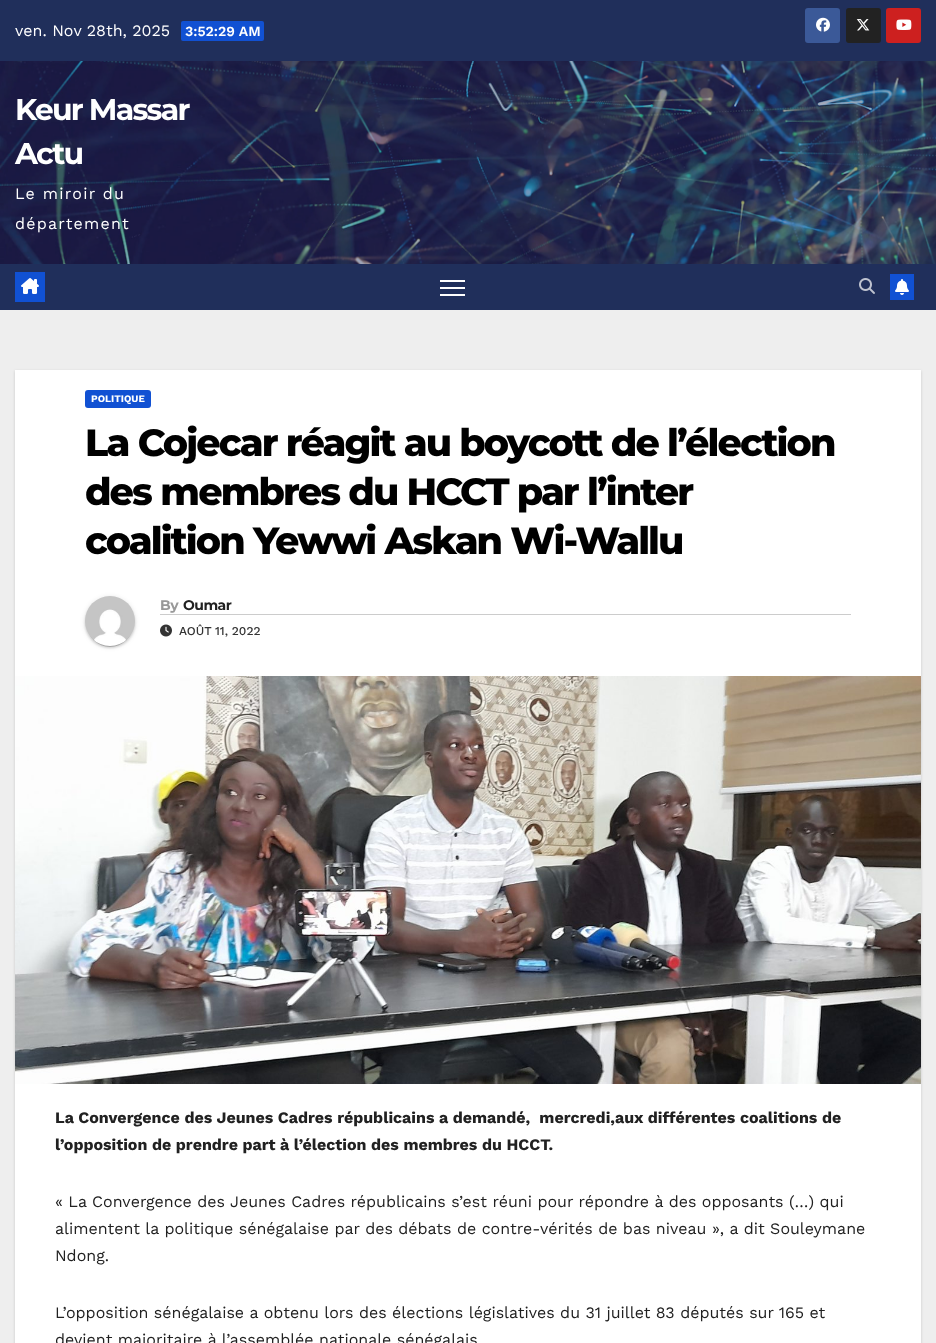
<?xml version="1.0" encoding="UTF-8"?>
<svg xmlns="http://www.w3.org/2000/svg" xmlns:xlink="http://www.w3.org/1999/xlink" width="936" height="1343">
  <rect width="100%" height="100%" fill="#eeeeee" />
  <rect width="936" height="61" fill="#202f5b" />
  <rect x="181" y="21" width="83" height="20" rx="2" fill="#1151d3" />
  <rect x="805" y="8" width="35" height="35" rx="3" fill="#3b5998" />
  <image x="816" y="17" width="14" height="15" xlink:href="image1.png" />
  <rect x="846" y="8" width="35" height="35" rx="3" fill="#222222" />
  <image x="856" y="19" width="14" height="12" xlink:href="image2.png" />
  <rect x="886" y="8" width="35" height="35" rx="3" fill="#cd201f" />
  <image x="896" y="19" width="16" height="11" xlink:href="image3.png" />
  <image x="0" y="61" width="936" height="203" xlink:href="image4.png" />
  <rect y="264" width="936" height="46" fill="#202f5b" />
  <rect x="15" y="272" width="30" height="30" fill="#1151d3" />
  <image x="21" y="278" width="18" height="16" xlink:href="image5.png" />
  <rect x="440" y="280" width="25" height="2" fill="#ffffff" />
  <rect x="440" y="287" width="25" height="2" fill="#ffffff" />
  <rect x="440" y="294" width="25" height="2" fill="#ffffff" />
  <image x="859" y="278" width="16" height="16" xlink:href="image6.png" />
  <rect x="890" y="274" width="24" height="26" fill="#1151d3" />
  <image x="895" y="279" width="14" height="16" xlink:href="image7.png" />
  <rect x="15" y="371" width="906" height="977" fill="#000000" fill-opacity="0.15" filter="blur(1.5px)" />
  <rect x="15" y="370" width="906" height="973" fill="#ffffff" />
  <rect x="85" y="390" width="66" height="18" rx="3" fill="#1151d3" />
  <rect x="85" y="597" width="50" height="50" rx="25" fill="#000000" fill-opacity="0.12" filter="blur(2.5px)" />
  <rect x="87" y="601" width="46" height="46" rx="23" fill="#000000" fill-opacity="0.2" filter="blur(0.5px)" />
  <rect x="85" y="598" width="50" height="50" rx="25" fill="#000000" fill-opacity="0.14" filter="blur(1px)" />
  <image x="85" y="596" width="50" height="50" xlink:href="image8.png" />
  <rect x="160" y="614" width="691" height="1" fill="#cccccc" />
  <image x="160" y="624" width="12" height="13" xlink:href="image9.png" />
  <image x="15" y="676" width="906" height="408" xlink:href="image10.png" />
  <text x="15" y="36" style="font-family: Work Sans; font-size: 16px; fill: #ffffff">ven. Nov 28th, 2025</text>
  <text x="185" y="36" style="font-family: Work Sans; font-size: 14px; font-weight: 600; fill: #ffffff">3:52:29 AM</text>
  <text x="15" y="120" style="font-family: Montserrat; font-size: 30px; font-weight: bold; letter-spacing: -1.75px; fill: #ffffff">Keur Massar</text>
  <text x="15" y="164" style="font-family: Montserrat; font-size: 30px; font-weight: bold; letter-spacing: -1.75px; fill: #ffffff">Actu</text>
  <text x="15" y="199" style="font-family: Work Sans; font-size: 16px; letter-spacing: 1.25px; fill: #ffffff">Le miroir du</text>
  <text x="15" y="229" style="font-family: Work Sans; font-size: 16px; letter-spacing: 1.25px; fill: #ffffff">département</text>
  <text x="91" y="402" style="font-family: Work Sans; font-size: 10px; font-weight: bold; fill: #ffffff">POLITIQUE</text>
  <text x="85" y="456" style="font-family: Montserrat; font-size: 38px; font-weight: 800; letter-spacing: -1.9px; fill: #000000">La Cojecar réagit au boycott de l’élection</text>
  <text x="85" y="505" style="font-family: Montserrat; font-size: 38px; font-weight: 800; letter-spacing: -1.9px; fill: #000000">des membres du HCCT par l’inter</text>
  <text x="85" y="554" style="font-family: Montserrat; font-size: 38px; font-weight: 800; letter-spacing: -1.9px; fill: #000000">coalition Yewwi Askan Wi-Wallu</text>
  <text x="160" y="610" style="font-family: Montserrat; font-size: 14px; font-weight: bold; letter-spacing: -0.5px; fill: #999999">By</text>
  <text x="183" y="610" style="font-family: Montserrat; font-size: 14px; font-weight: bold; letter-spacing: -0.5px; fill: #212121">Oumar</text>
  <text x="179" y="635" style="font-family: Work Sans; font-size: 12px; font-weight: 500; fill: #333333">AOÛT 11, 2022</text>
  <text x="55" y="1123" style="font-family: Work Sans; font-size: 16px; font-weight: bold; fill: #212121" xml:space="preserve">La Convergence des Jeunes Cadres républicains a demandé,  mercredi,aux différentes coalitions de</text>
  <text x="55" y="1150" style="font-family: Work Sans; font-size: 16px; font-weight: bold; fill: #212121">l’opposition de prendre part à l’élection des membres du HCCT.</text>
  <text x="55" y="1207" style="font-family: Work Sans; font-size: 16px; fill: #212121">« La Convergence des Jeunes Cadres républicains s’est réuni pour répondre à des opposants (…) qui</text>
  <text x="55" y="1234" style="font-family: Work Sans; font-size: 16px; fill: #212121">alimentent la politique sénégalaise par des débats de contre-vérités de bas niveau », a dit Souleymane</text>
  <text x="55" y="1261" style="font-family: Work Sans; font-size: 16px; fill: #212121">Ndong.</text>
  <text x="55" y="1318" style="font-family: Work Sans; font-size: 16px; fill: #212121">L’opposition sénégalaise a obtenu lors des élections législatives du 31 juillet 83 députés sur 165 et</text>
  <text x="55" y="1345" style="font-family: Work Sans; font-size: 16px; fill: #212121">devient majoritaire à l’assemblée nationale sénégalais</text>
</svg>
